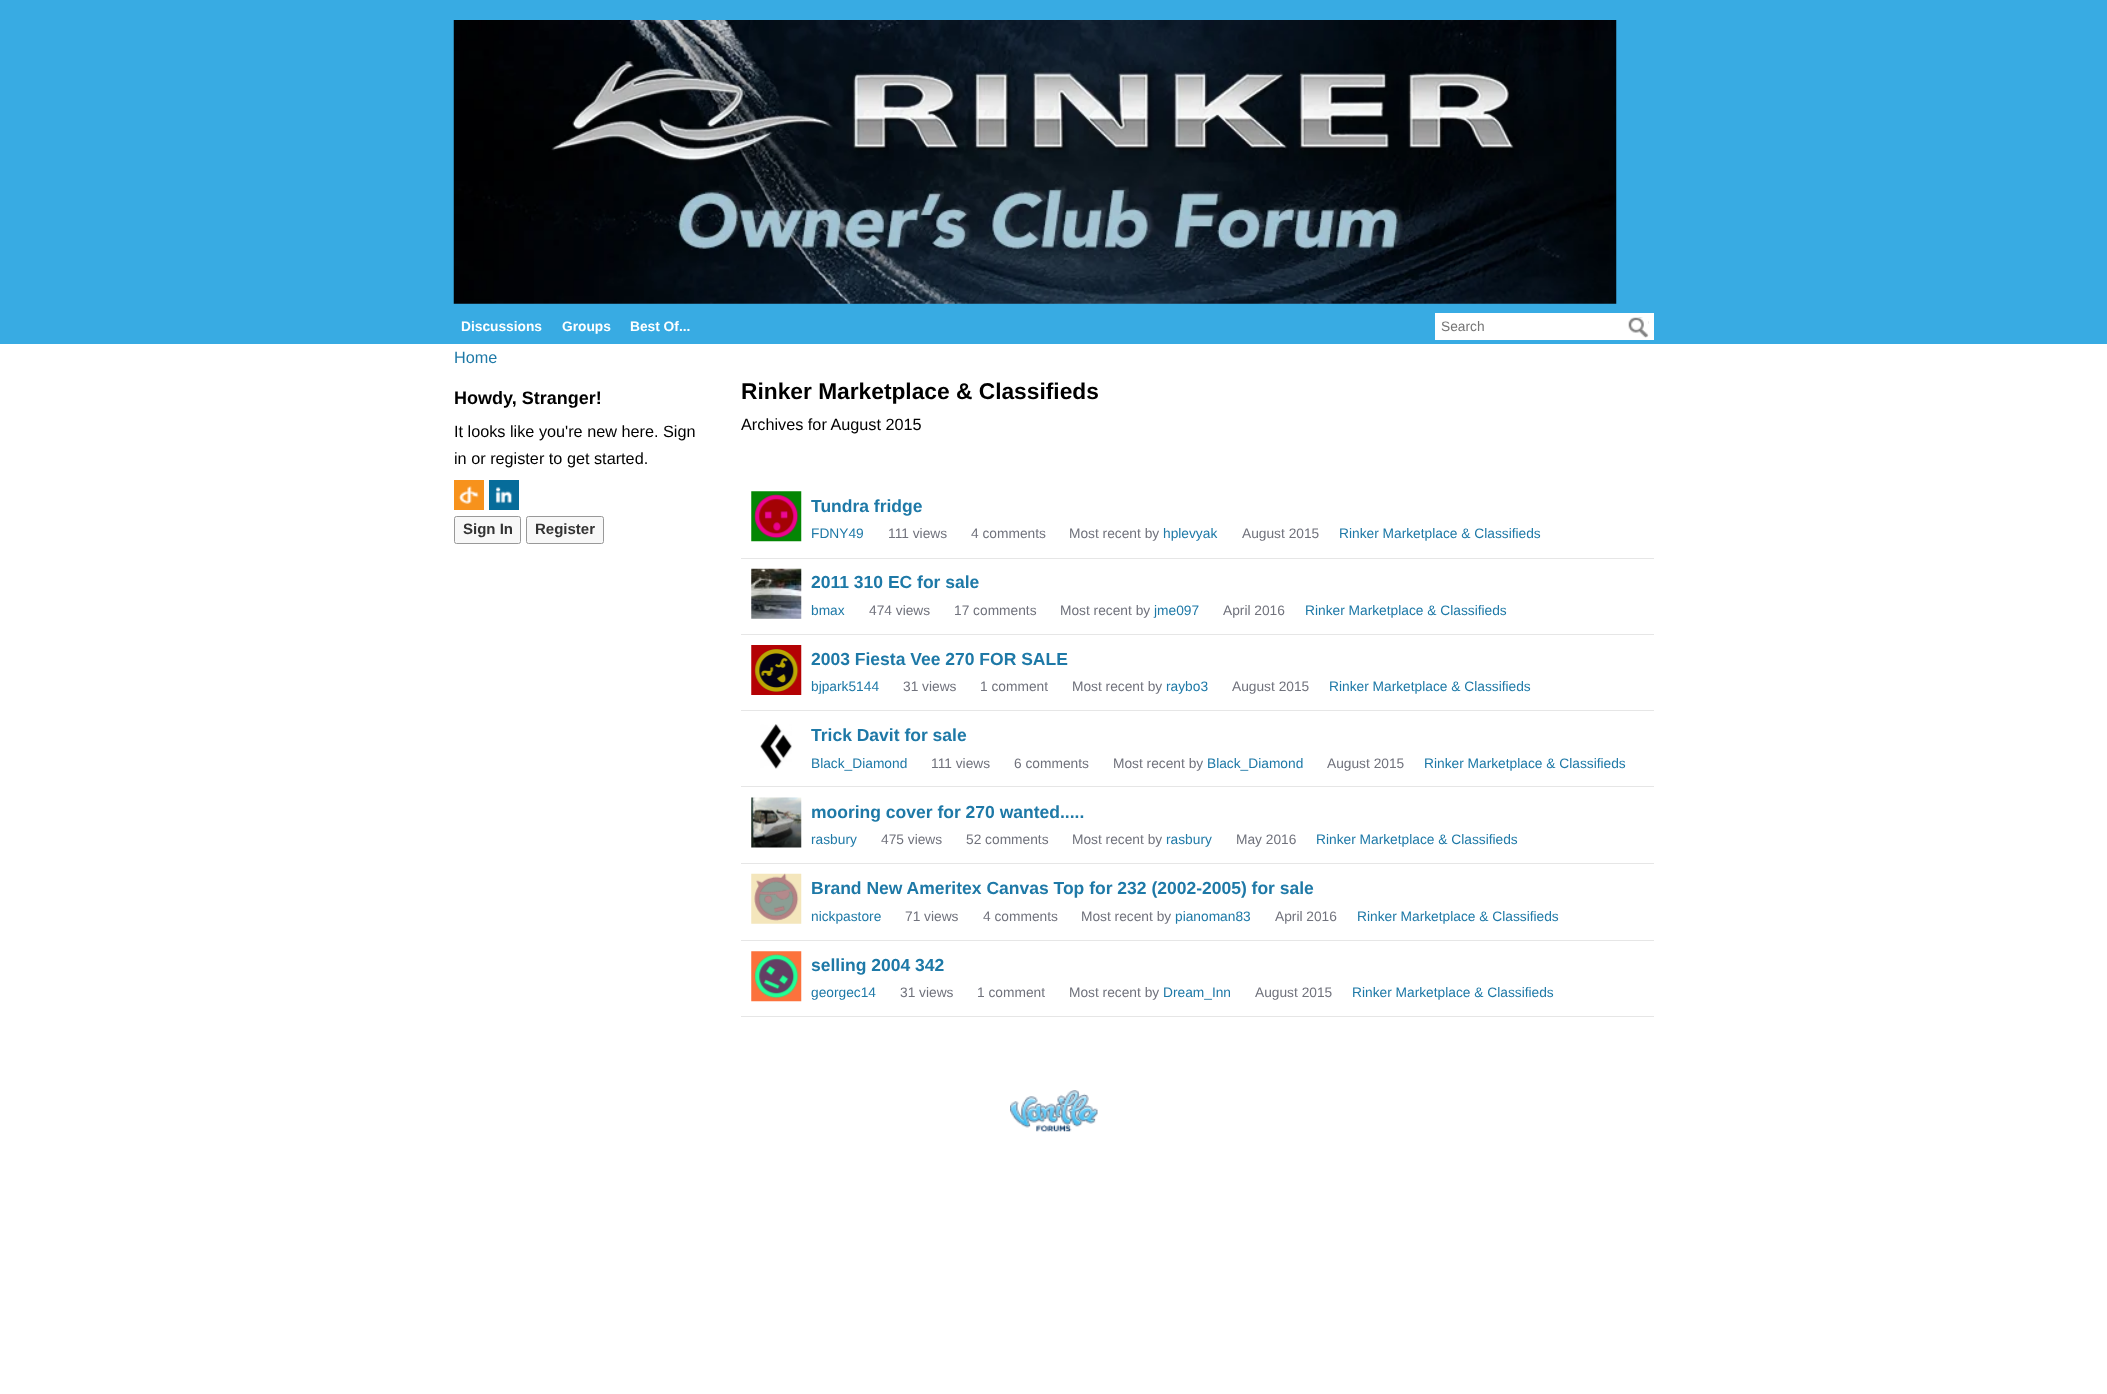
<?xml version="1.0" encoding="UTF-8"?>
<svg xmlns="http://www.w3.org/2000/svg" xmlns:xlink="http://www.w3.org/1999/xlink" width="2107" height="1394">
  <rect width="100%" height="100%" fill="#ffffff" />
  <rect width="2107" height="344" fill="#38abe3" />
  <image x="453" y="20" width="1164" height="284" xlink:href="image1.png" />
  <rect x="1435" y="313" width="219" height="27" fill="#ffffff" />
  <image x="1628" y="317" width="21" height="21" xlink:href="image2.png" />
  <rect x="454" y="480" width="30" height="30" fill="#f7921c" />
  <image x="458" y="486" width="21" height="18" xlink:href="image3.png" />
  <rect x="489" y="480" width="30" height="30" fill="#066c9a" />
  <image x="495" y="487" width="18" height="17" xlink:href="image4.png" />
  <rect x="454.5" y="516.5" width="66" height="27" rx="2" fill="#f8f8f8" stroke="#999999" />
  <rect x="526.5" y="516.5" width="77" height="27" rx="2" fill="#f8f8f8" stroke="#999999" />
  <rect x="741" y="558" width="913" height="1" fill="#e6e6e6" />
  <image x="751" y="491" width="51" height="51" xlink:href="image5.png" />
  <rect x="741" y="634" width="913" height="1" fill="#e6e6e6" />
  <image x="751" y="568" width="51" height="51" xlink:href="image6.png" />
  <rect x="741" y="710" width="913" height="1" fill="#e6e6e6" />
  <image x="751" y="645" width="51" height="50" xlink:href="image7.png" />
  <rect x="741" y="786" width="913" height="1" fill="#e6e6e6" />
  <image x="760" y="724" width="32" height="45" xlink:href="image8.png" />
  <rect x="741" y="863" width="913" height="1" fill="#e6e6e6" />
  <image x="751" y="797" width="51" height="51" xlink:href="image9.png" />
  <rect x="741" y="940" width="913" height="1" fill="#e6e6e6" />
  <image x="751" y="873" width="51" height="51" xlink:href="image10.png" />
  <rect x="741" y="1016" width="913" height="1" fill="#e6e6e6" />
  <image x="751" y="951" width="51" height="51" xlink:href="image11.png" />
  <image x="1010" y="1090" width="88" height="42" xlink:href="image12.png" />
  <text x="461" y="331" style="font-family: Liberation Sans; font-size: 13.75px; font-weight: bold; fill: #ffffff">Discussions</text>
  <text x="562" y="331" style="font-family: Liberation Sans; font-size: 13.75px; font-weight: bold; fill: #ffffff">Groups</text>
  <text x="630" y="331" style="font-family: Liberation Sans; font-size: 13.75px; font-weight: bold; fill: #ffffff">Best Of...</text>
  <text x="1441" y="331" style="font-family: Liberation Sans; font-size: 13.75px; fill: #757575">Search</text>
  <text x="454" y="363" style="font-family: Liberation Sans; font-size: 16.25px; fill: #1e79a7">Home</text>
  <text x="454" y="404" style="font-family: Liberation Sans; font-size: 18px; font-weight: bold; fill: #000000">Howdy, Stranger!</text>
  <text x="454" y="437" style="font-family: Liberation Sans; font-size: 16.25px; fill: #000000">It looks like you're new here. Sign</text>
  <text x="454" y="464" style="font-family: Liberation Sans; font-size: 16.25px; fill: #000000">in or register to get started.</text>
  <text x="463" y="534" style="font-family: Liberation Sans; font-size: 15px; font-weight: bold; fill: #333333">Sign In</text>
  <text x="535" y="534" style="font-family: Liberation Sans; font-size: 15px; font-weight: bold; fill: #333333">Register</text>
  <text x="741" y="399" style="font-family: Liberation Sans; font-size: 22.75px; font-weight: bold; fill: #000000">Rinker Marketplace &amp; Classifieds</text>
  <text x="741" y="430" style="font-family: Liberation Sans; font-size: 16.25px; fill: #000000">Archives for August 2015</text>
  <text x="811" y="512" style="font-family: Liberation Sans; font-size: 17.5px; font-weight: bold; fill: #1e79a7">Tundra fridge</text>
  <text x="811" y="538" style="font-family: Liberation Sans; font-size: 13.75px; fill: #1e79a7">FDNY49</text>
  <text x="888" y="538" style="font-family: Liberation Sans; font-size: 13.75px; fill: #70727c">111 views</text>
  <text x="971" y="538" style="font-family: Liberation Sans; font-size: 13.75px; fill: #70727c">4 comments</text>
  <text x="1069" y="538" style="font-family: Liberation Sans; font-size: 13.75px; fill: #70727c">Most recent by</text>
  <text x="1163" y="538" style="font-family: Liberation Sans; font-size: 13.75px; fill: #1e79a7">hplevyak</text>
  <text x="1242" y="538" style="font-family: Liberation Sans; font-size: 13.75px; fill: #70727c">August 2015</text>
  <text x="1339" y="538" style="font-family: Liberation Sans; font-size: 13.75px; fill: #1e79a7">Rinker Marketplace &amp; Classifieds</text>
  <text x="811" y="588" style="font-family: Liberation Sans; font-size: 17.5px; font-weight: bold; fill: #1e79a7">2011 310 EC for sale</text>
  <text x="811" y="615" style="font-family: Liberation Sans; font-size: 13.75px; fill: #1e79a7">bmax</text>
  <text x="869" y="615" style="font-family: Liberation Sans; font-size: 13.75px; fill: #70727c">474 views</text>
  <text x="954" y="615" style="font-family: Liberation Sans; font-size: 13.75px; fill: #70727c">17 comments</text>
  <text x="1060" y="615" style="font-family: Liberation Sans; font-size: 13.75px; fill: #70727c">Most recent by</text>
  <text x="1154" y="615" style="font-family: Liberation Sans; font-size: 13.75px; fill: #1e79a7">jme097</text>
  <text x="1223" y="615" style="font-family: Liberation Sans; font-size: 13.75px; fill: #70727c">April 2016</text>
  <text x="1305" y="615" style="font-family: Liberation Sans; font-size: 13.75px; fill: #1e79a7">Rinker Marketplace &amp; Classifieds</text>
  <text x="811" y="665" style="font-family: Liberation Sans; font-size: 17.5px; font-weight: bold; fill: #1e79a7">2003 Fiesta Vee 270 FOR SALE</text>
  <text x="811" y="691" style="font-family: Liberation Sans; font-size: 13.75px; fill: #1e79a7">bjpark5144</text>
  <text x="903" y="691" style="font-family: Liberation Sans; font-size: 13.75px; fill: #70727c">31 views</text>
  <text x="980" y="691" style="font-family: Liberation Sans; font-size: 13.75px; fill: #70727c">1 comment</text>
  <text x="1072" y="691" style="font-family: Liberation Sans; font-size: 13.75px; fill: #70727c">Most recent by</text>
  <text x="1166" y="691" style="font-family: Liberation Sans; font-size: 13.75px; fill: #1e79a7">raybo3</text>
  <text x="1232" y="691" style="font-family: Liberation Sans; font-size: 13.75px; fill: #70727c">August 2015</text>
  <text x="1329" y="691" style="font-family: Liberation Sans; font-size: 13.75px; fill: #1e79a7">Rinker Marketplace &amp; Classifieds</text>
  <text x="811" y="741" style="font-family: Liberation Sans; font-size: 17.5px; font-weight: bold; fill: #1e79a7">Trick Davit for sale</text>
  <text x="811" y="768" style="font-family: Liberation Sans; font-size: 13.75px; fill: #1e79a7">Black_Diamond</text>
  <text x="931" y="768" style="font-family: Liberation Sans; font-size: 13.75px; fill: #70727c">111 views</text>
  <text x="1014" y="768" style="font-family: Liberation Sans; font-size: 13.75px; fill: #70727c">6 comments</text>
  <text x="1113" y="768" style="font-family: Liberation Sans; font-size: 13.75px; fill: #70727c">Most recent by</text>
  <text x="1207" y="768" style="font-family: Liberation Sans; font-size: 13.75px; fill: #1e79a7">Black_Diamond</text>
  <text x="1327" y="768" style="font-family: Liberation Sans; font-size: 13.75px; fill: #70727c">August 2015</text>
  <text x="1424" y="768" style="font-family: Liberation Sans; font-size: 13.75px; fill: #1e79a7">Rinker Marketplace &amp; Classifieds</text>
  <text x="811" y="818" style="font-family: Liberation Sans; font-size: 17.5px; font-weight: bold; fill: #1e79a7">mooring cover for 270 wanted.....</text>
  <text x="811" y="844" style="font-family: Liberation Sans; font-size: 13.75px; fill: #1e79a7">rasbury</text>
  <text x="881" y="844" style="font-family: Liberation Sans; font-size: 13.75px; fill: #70727c">475 views</text>
  <text x="966" y="844" style="font-family: Liberation Sans; font-size: 13.75px; fill: #70727c">52 comments</text>
  <text x="1072" y="844" style="font-family: Liberation Sans; font-size: 13.75px; fill: #70727c">Most recent by</text>
  <text x="1166" y="844" style="font-family: Liberation Sans; font-size: 13.75px; fill: #1e79a7">rasbury</text>
  <text x="1236" y="844" style="font-family: Liberation Sans; font-size: 13.75px; fill: #70727c">May 2016</text>
  <text x="1316" y="844" style="font-family: Liberation Sans; font-size: 13.75px; fill: #1e79a7">Rinker Marketplace &amp; Classifieds</text>
  <text x="811" y="894" style="font-family: Liberation Sans; font-size: 17.5px; font-weight: bold; fill: #1e79a7">Brand New Ameritex Canvas Top for 232 (2002-2005) for sale</text>
  <text x="811" y="921" style="font-family: Liberation Sans; font-size: 13.75px; fill: #1e79a7">nickpastore</text>
  <text x="905" y="921" style="font-family: Liberation Sans; font-size: 13.75px; fill: #70727c">71 views</text>
  <text x="983" y="921" style="font-family: Liberation Sans; font-size: 13.75px; fill: #70727c">4 comments</text>
  <text x="1081" y="921" style="font-family: Liberation Sans; font-size: 13.75px; fill: #70727c">Most recent by</text>
  <text x="1175" y="921" style="font-family: Liberation Sans; font-size: 13.75px; fill: #1e79a7">pianoman83</text>
  <text x="1275" y="921" style="font-family: Liberation Sans; font-size: 13.75px; fill: #70727c">April 2016</text>
  <text x="1357" y="921" style="font-family: Liberation Sans; font-size: 13.75px; fill: #1e79a7">Rinker Marketplace &amp; Classifieds</text>
  <text x="811" y="971" style="font-family: Liberation Sans; font-size: 17.5px; font-weight: bold; fill: #1e79a7">selling 2004 342</text>
  <text x="811" y="997" style="font-family: Liberation Sans; font-size: 13.75px; fill: #1e79a7">georgec14</text>
  <text x="900" y="997" style="font-family: Liberation Sans; font-size: 13.75px; fill: #70727c">31 views</text>
  <text x="977" y="997" style="font-family: Liberation Sans; font-size: 13.75px; fill: #70727c">1 comment</text>
  <text x="1069" y="997" style="font-family: Liberation Sans; font-size: 13.75px; fill: #70727c">Most recent by</text>
  <text x="1163" y="997" style="font-family: Liberation Sans; font-size: 13.75px; fill: #1e79a7">Dream_Inn</text>
  <text x="1255" y="997" style="font-family: Liberation Sans; font-size: 13.75px; fill: #70727c">August 2015</text>
  <text x="1352" y="997" style="font-family: Liberation Sans; font-size: 13.75px; fill: #1e79a7">Rinker Marketplace &amp; Classifieds</text>
</svg>
